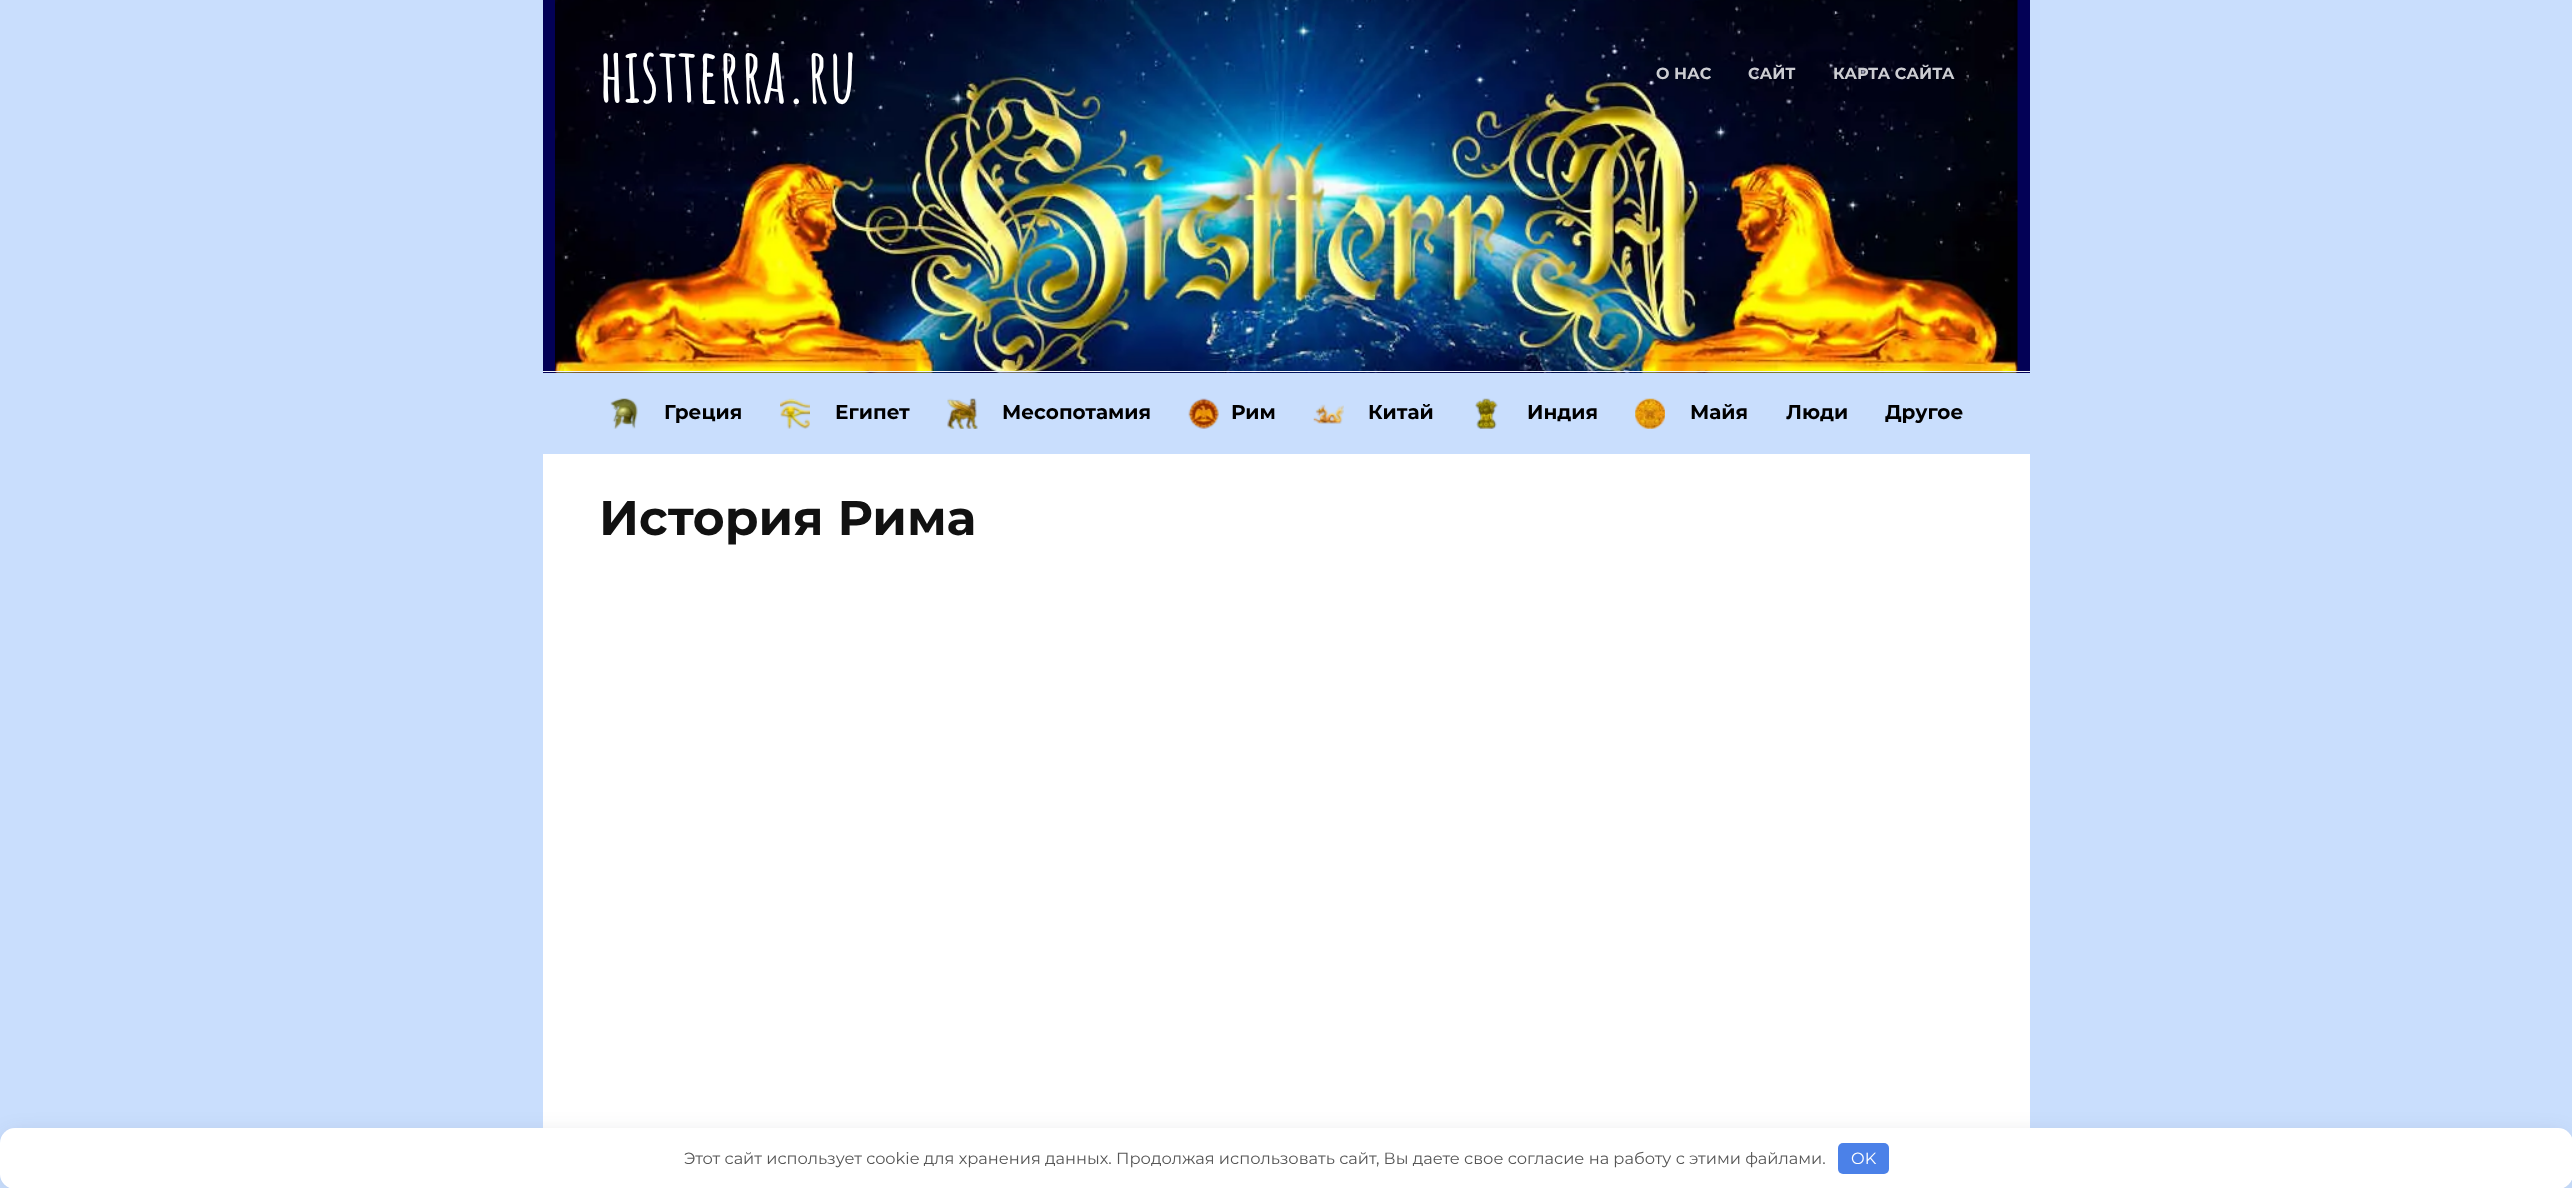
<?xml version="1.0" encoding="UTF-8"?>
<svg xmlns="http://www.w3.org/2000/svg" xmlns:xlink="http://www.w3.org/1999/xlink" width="2572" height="1188">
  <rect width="100%" height="100%" fill="#c9defd" />
  <rect x="543" width="1487" height="373" fill="#030156" />
  <image x="555" y="0" width="1463" height="373" xlink:href="image1.png" />
  <rect x="543" y="371" width="1487" height="1" fill="#f2f5f9" />
  <image x="610" y="398" width="28" height="31" xlink:href="image2.png" />
  <image x="780" y="398" width="30" height="31" xlink:href="image3.png" />
  <image x="947" y="398" width="31" height="31" xlink:href="image4.png" />
  <image x="1188" y="398" width="31" height="31" xlink:href="image5.png" />
  <image x="1313" y="404" width="31" height="20" xlink:href="image6.png" />
  <image x="1475" y="398" width="23" height="31" xlink:href="image7.png" />
  <image x="1635" y="398" width="30" height="31" xlink:href="image8.png" />
  <rect x="543" y="454" width="1487" height="674" fill="#ffffff" />
  <rect x="6" y="1138" width="2560" height="48" rx="9" fill="#292c38" fill-opacity="0.2" filter="blur(12.5px)" />
  <rect y="1128" width="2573" height="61" rx="15" fill="#ffffff" />
  <rect x="1838" y="1143" width="51" height="31" rx="5" fill="#4b81e8" />
  <text x="599" y="103" style="font-family: Amatic SC; font-size: 75px; font-weight: bold; fill: #ffffff">histterra.ru</text>
  <text x="1656" y="79" style="font-family: Montserrat; font-size: 16px; font-weight: bold; fill: #cccdd2">О НАС</text>
  <text x="1748" y="79" style="font-family: Montserrat; font-size: 16px; font-weight: bold; fill: #cccdd2">САЙТ</text>
  <text x="1833" y="79" style="font-family: Montserrat; font-size: 16px; font-weight: bold; fill: #cccdd2">КАРТА САЙТА</text>
  <text x="664" y="419" style="font-family: Montserrat; font-size: 20px; font-weight: bold; fill: #000000">Греция</text>
  <text x="835" y="419" style="font-family: Montserrat; font-size: 20px; font-weight: bold; fill: #000000">Египет</text>
  <text x="1002" y="419" style="font-family: Montserrat; font-size: 20px; font-weight: bold; fill: #000000">Месопотамия</text>
  <text x="1231" y="419" style="font-family: Montserrat; font-size: 20px; font-weight: bold; fill: #000000">Рим</text>
  <text x="1368" y="419" style="font-family: Montserrat; font-size: 20px; font-weight: bold; fill: #000000">Китай</text>
  <text x="1527" y="419" style="font-family: Montserrat; font-size: 20px; font-weight: bold; fill: #000000">Индия</text>
  <text x="1690" y="419" style="font-family: Montserrat; font-size: 20px; font-weight: bold; fill: #000000">Майя</text>
  <text x="1786" y="419" style="font-family: Montserrat; font-size: 20px; font-weight: bold; fill: #000000">Люди</text>
  <text x="1885" y="419" style="font-family: Montserrat; font-size: 20px; font-weight: bold; fill: #000000">Другое</text>
  <text x="599" y="535" style="font-family: Montserrat; font-size: 48.75px; font-weight: bold; fill: #111111">История Рима</text>
  <text x="684" y="1164" style="font-family: Montserrat; font-size: 16.25px; fill: #555555">Этот сайт использует cookie для хранения данных. Продолжая использовать сайт, Вы даете свое согласие на работу с этими файлами.</text>
  <text x="1851" y="1164" style="font-family: Montserrat; font-size: 16.25px; fill: #ffffff">OK</text>
</svg>
